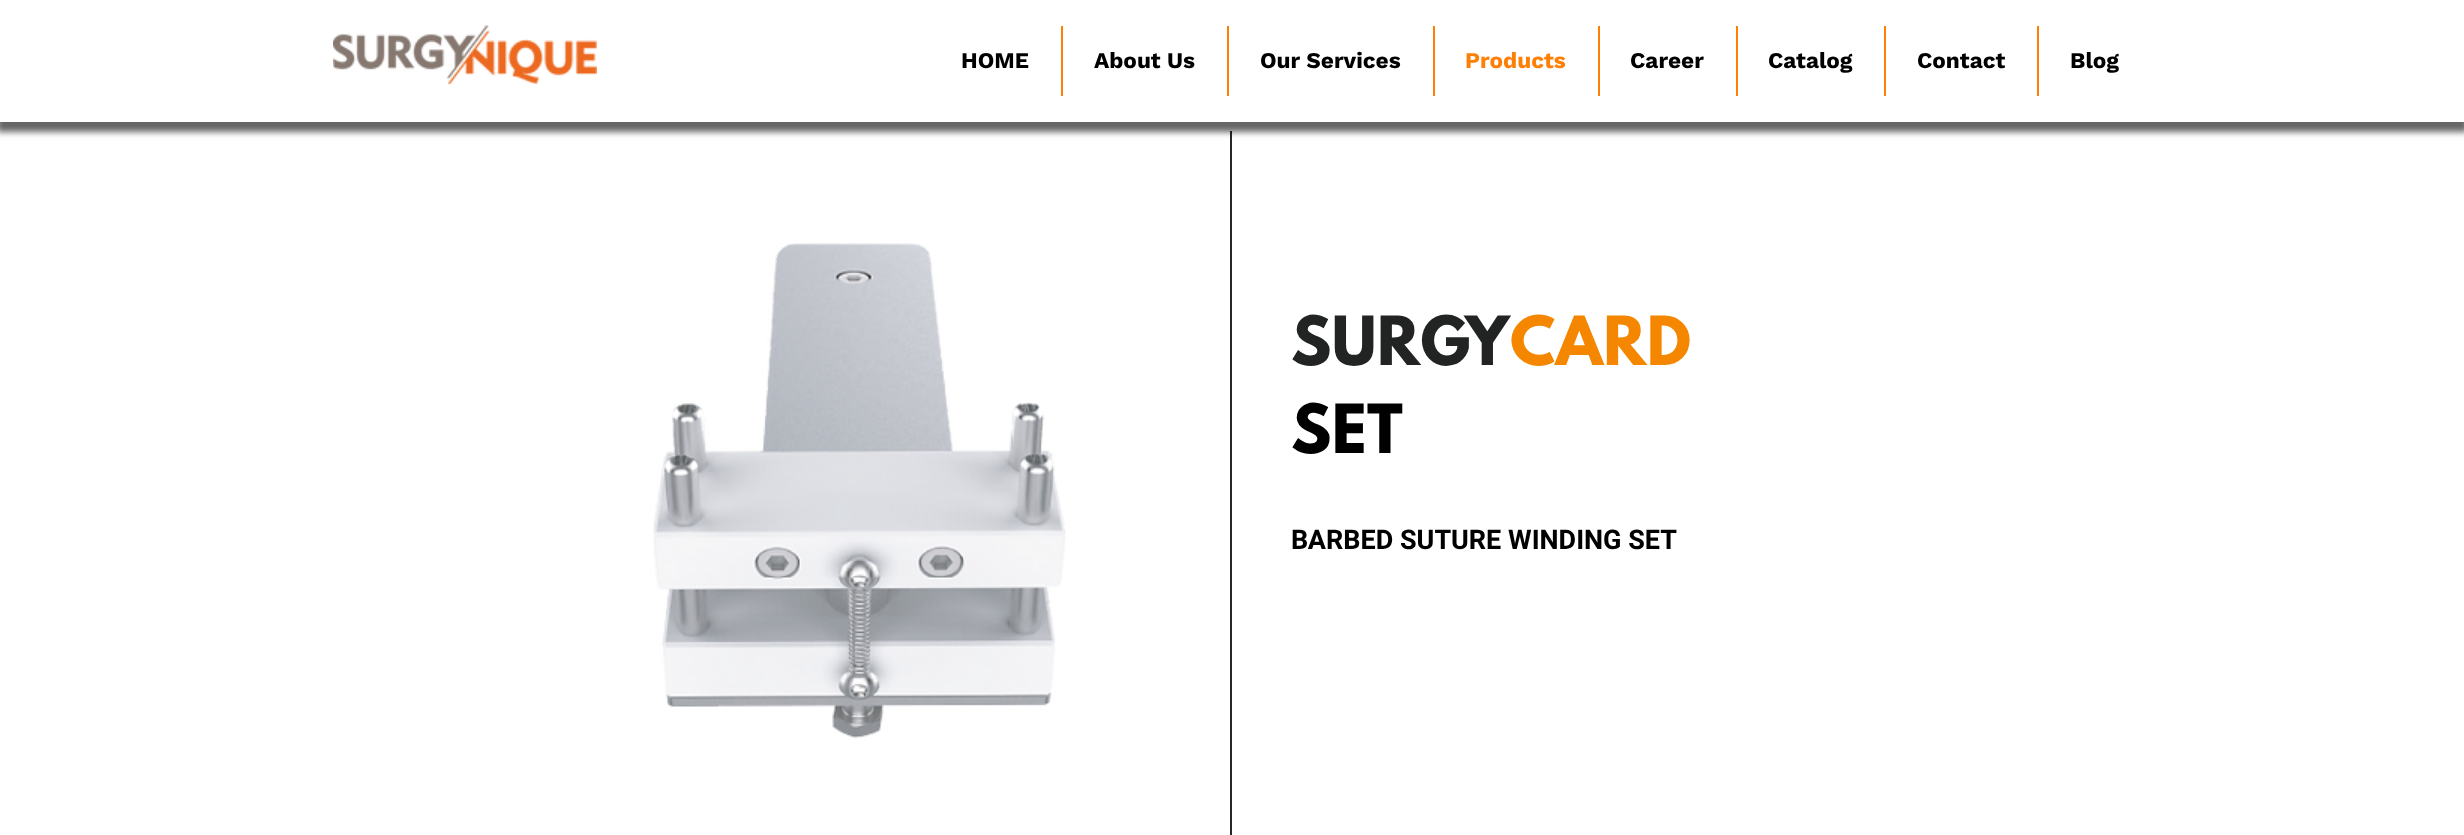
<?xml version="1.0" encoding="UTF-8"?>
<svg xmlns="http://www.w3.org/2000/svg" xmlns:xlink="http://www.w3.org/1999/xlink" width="2464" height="835">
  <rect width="100%" height="100%" fill="#ffffff" />
  <rect x="1230" y="131" width="2" height="704" fill="#282626" />
  <rect x="-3" y="5" width="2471" height="127" fill="#000000" fill-opacity="0.6" filter="blur(3px)" />
  <rect width="2464" height="122" fill="#ffffff" />
  <image x="333" y="25" width="264" height="59" xlink:href="image1.png" />
  <rect x="1061" y="26" width="2" height="70" fill="#ff7f04" />
  <rect x="1227" y="26" width="2" height="70" fill="#ff7f04" />
  <rect x="1433" y="26" width="2" height="70" fill="#ff7f04" />
  <rect x="1598" y="26" width="2" height="70" fill="#ff7f04" />
  <rect x="1736" y="26" width="2" height="70" fill="#ff7f04" />
  <rect x="1884" y="26" width="2" height="70" fill="#ff7f04" />
  <rect x="2037" y="26" width="2" height="70" fill="#ff7f04" />
  <image x="653" y="243" width="413" height="495" xlink:href="image2.png" />
  <text x="961" y="68" style="font-family: Work Sans; font-size: 22.5px; font-weight: bold; fill: #000000">HOME</text>
  <text x="1094" y="68" style="font-family: Work Sans; font-size: 22.5px; font-weight: bold; fill: #000000">About Us</text>
  <text x="1260" y="68" style="font-family: Work Sans; font-size: 22.5px; font-weight: bold; fill: #000000">Our Services</text>
  <text x="1465" y="68" style="font-family: Work Sans; font-size: 22.5px; font-weight: bold; fill: #ff7f04">Products</text>
  <text x="1630" y="68" style="font-family: Work Sans; font-size: 22.5px; font-weight: bold; fill: #000000">Career</text>
  <text x="1768" y="68" style="font-family: Work Sans; font-size: 22.5px; font-weight: bold; fill: #000000">Catalog</text>
  <text x="1917" y="68" style="font-family: Work Sans; font-size: 22.5px; font-weight: bold; fill: #000000">Contact</text>
  <text x="2070" y="68" style="font-family: Work Sans; font-size: 22.5px; font-weight: bold; fill: #000000">Blog</text>
  <text x="1291" y="365" style="font-family: League Spartan; font-size: 60px; font-weight: bold; letter-spacing: 0.5px; fill: #222323">SURGY</text>
  <text x="1510" y="365" style="font-family: League Spartan; font-size: 60px; font-weight: bold; letter-spacing: 0.5px; fill: #f58700">CARD</text>
  <text x="1291" y="453" style="font-family: League Spartan; font-size: 60px; font-weight: bold; letter-spacing: 0.5px; fill: #000000">SET</text>
  <text x="1291" y="549" style="font-family: Heebo; font-size: 27px; font-weight: bold; fill: #000000">BARBED SUTURE WINDING SET</text>
</svg>
